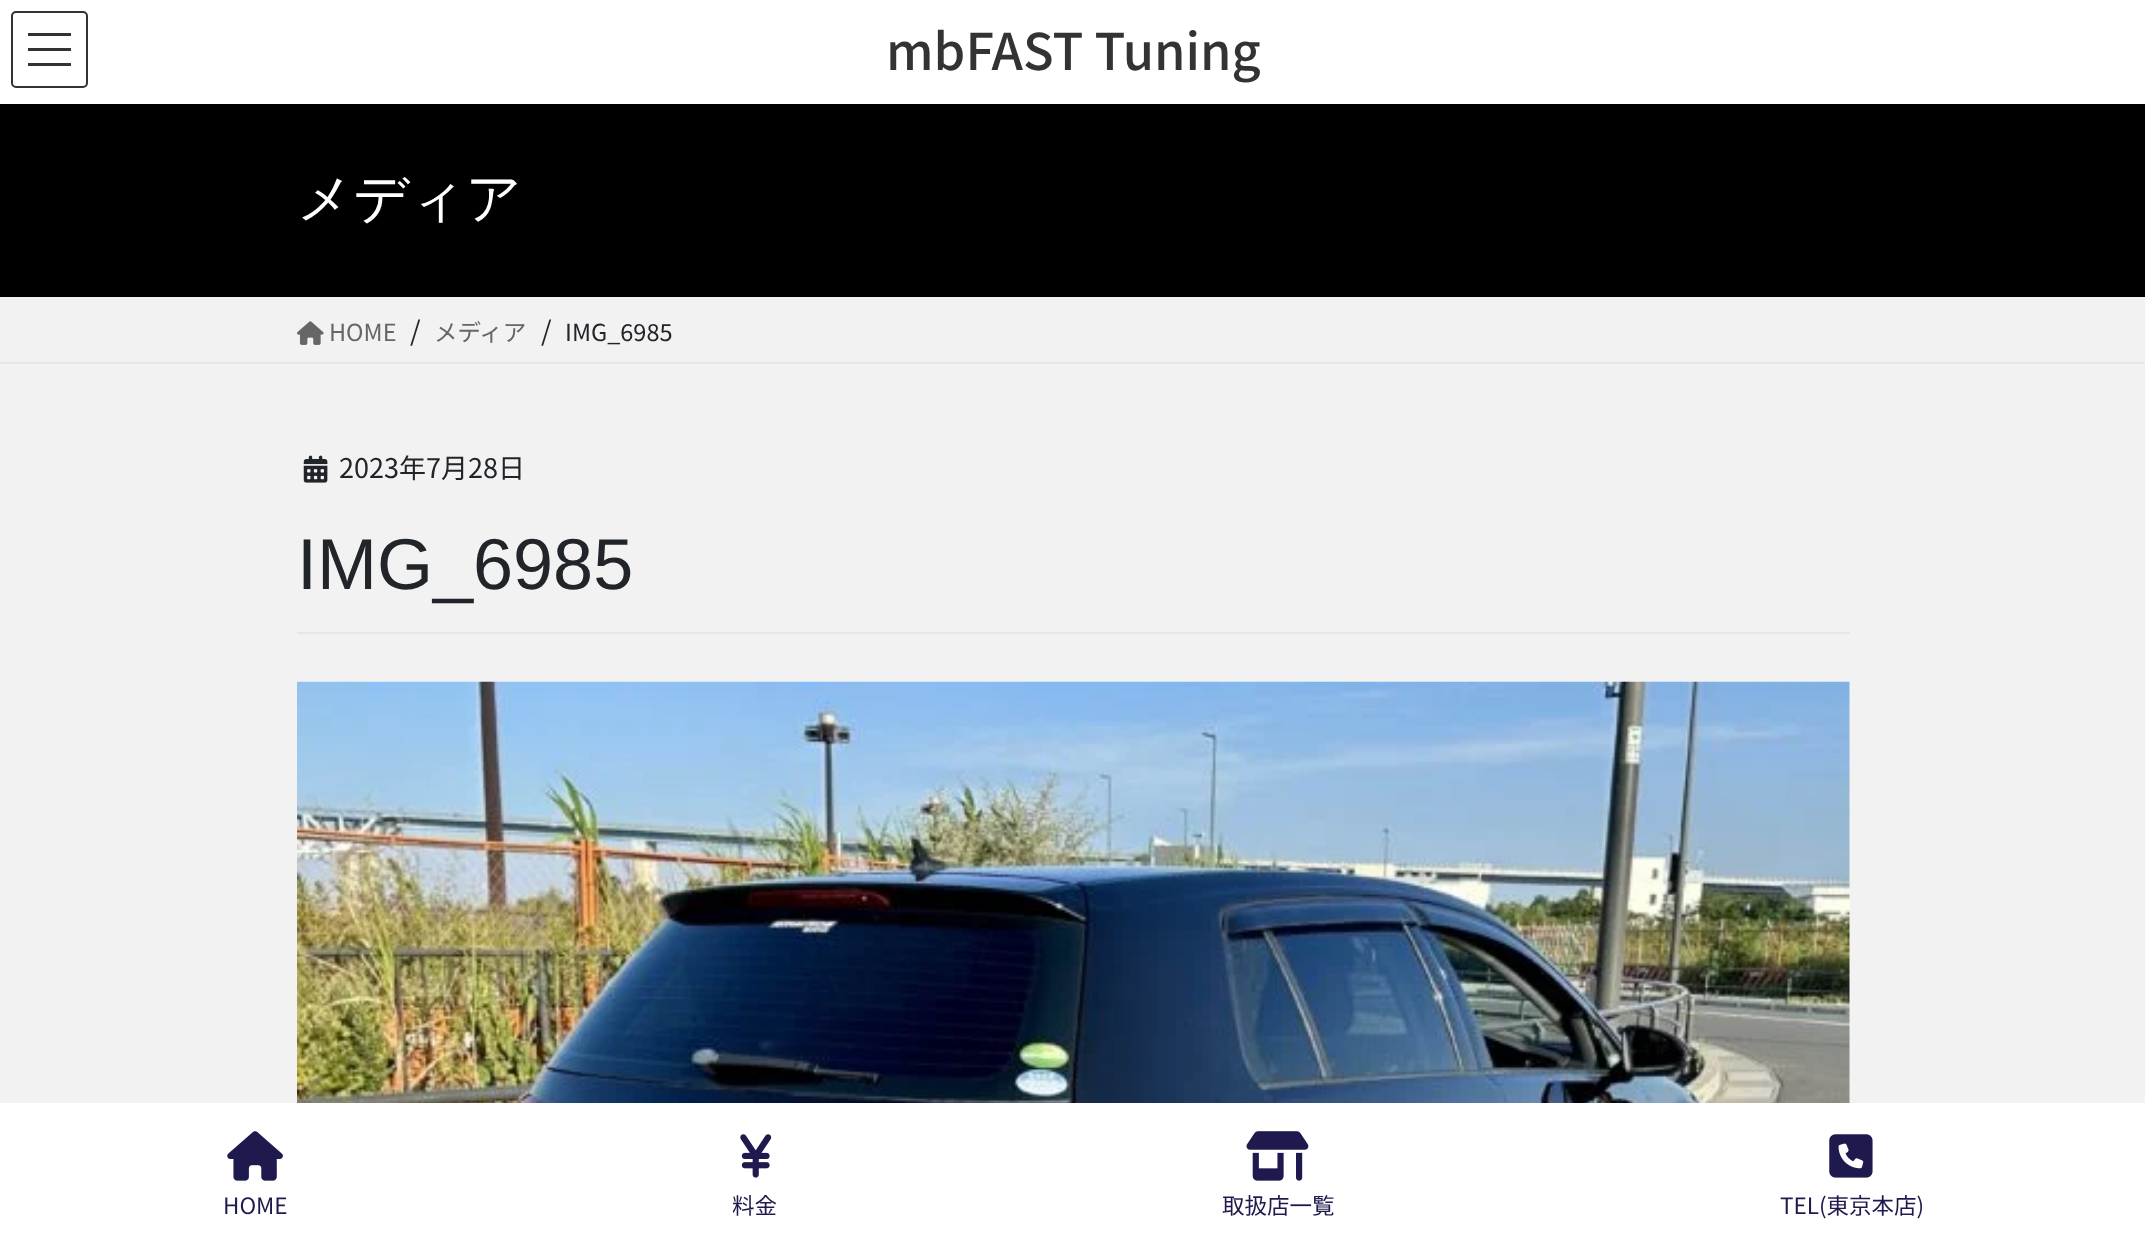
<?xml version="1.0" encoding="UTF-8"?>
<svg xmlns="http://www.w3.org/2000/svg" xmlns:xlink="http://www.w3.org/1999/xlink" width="2145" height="1241">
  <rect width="100%" height="100%" fill="#f2f2f2" />
  <rect y="104" width="2145" height="193" fill="#000000" />
  <rect y="2" width="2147" height="104" fill="#000000" fill-opacity="0.1" filter="blur(3.5px)" />
  <rect width="2145" height="104" fill="#ffffff" />
  <rect x="28" y="33" width="43" height="3" fill="#333333" />
  <rect x="28" y="48" width="43" height="3" fill="#333333" />
  <rect x="28" y="63" width="43" height="3" fill="#333333" />
  <rect x="12" y="12" width="75" height="75" rx="4" fill="none" stroke="#333333" stroke-width="2" />
  <rect y="362" width="2145" height="2" fill="#e6e6e6" />
  <image x="297" y="321" width="27" height="24" xlink:href="image1.png" />
  <rect x="297" y="632" width="1553" height="2" fill="#e6e6e6" />
  <image x="303" y="455" width="25" height="28" xlink:href="image2.png" />
  <image x="297" y="681" width="1553" height="422" xlink:href="image3.png" />
  <rect y="1103" width="2145" height="138" fill="#ffffff" />
  <image x="227" y="1131" width="56" height="50" xlink:href="image4.png" />
  <image x="740" y="1134" width="32" height="44" xlink:href="image5.png" />
  <image x="1246" y="1131" width="63" height="50" xlink:href="image6.png" />
  <image x="1829" y="1134" width="44" height="44" xlink:href="image7.png" />
  <text x="886" y="70" style="font-family: Noto Sans JP; font-size: 50.5px; font-weight: 500; fill: #333333">mbFAST Tuning</text>
  <text x="297" y="217" style="font-family: WenQuanYi Zen Hei; font-size: 55px; font-weight: 500; fill: #ffffff">メディア</text>
  <text x="329" y="341" style="font-family: Noto Sans JP; font-size: 23.5px; fill: #666666">HOME</text>
  <text x="410" y="341" style="font-family: Noto Sans JP; font-size: 27px; fill: #212529">/</text>
  <text x="434" y="341" style="font-family: Noto Sans JP; font-size: 23.5px; fill: #666666">メディア</text>
  <text x="541" y="341" style="font-family: Noto Sans JP; font-size: 27px; fill: #212529">/</text>
  <text x="565" y="341" style="font-family: Noto Sans JP; font-size: 23.5px; fill: #212529">IMG_6985</text>
  <text x="339" y="478" style="font-family: Noto Sans JP; font-size: 27px; fill: #212529">2023年7月28日</text>
  <text x="297" y="589" style="font-family: Liberation Sans; font-size: 72px; fill: #212529">IMG_6985</text>
  <text x="223" y="1214" style="font-family: Noto Sans JP; font-size: 22.5px; fill: #1e1a4e">HOME</text>
  <text x="732" y="1214" style="font-family: Noto Sans JP; font-size: 22.5px; fill: #1e1a4e">料金</text>
  <text x="1222" y="1214" style="font-family: Noto Sans JP; font-size: 22.5px; fill: #1e1a4e">取扱店一覧</text>
  <text x="1780" y="1214" style="font-family: Noto Sans JP; font-size: 22.5px; fill: #1e1a4e">TEL(東京本店)</text>
</svg>
